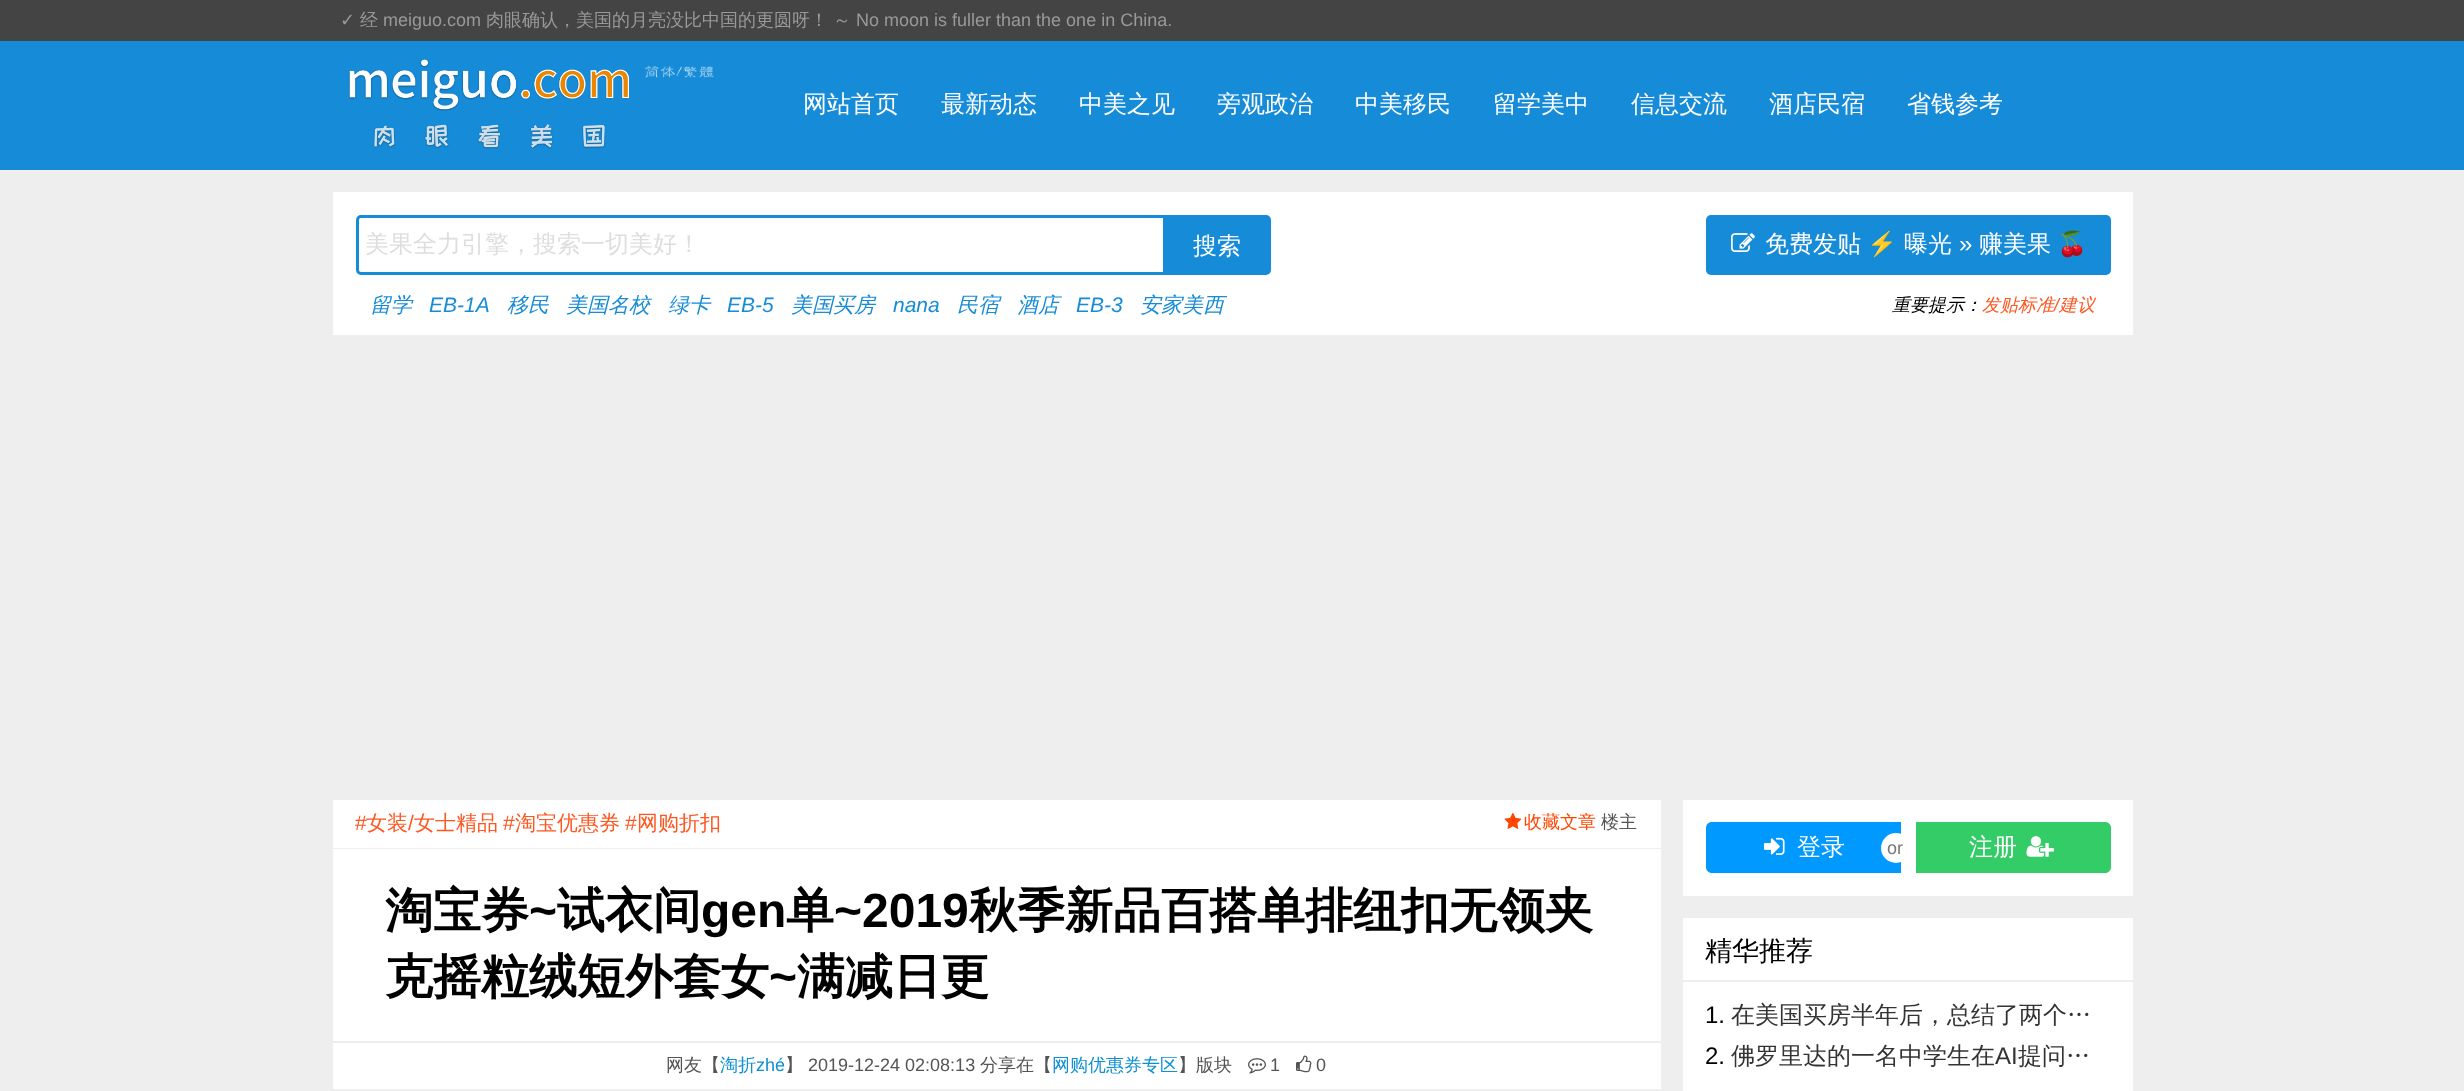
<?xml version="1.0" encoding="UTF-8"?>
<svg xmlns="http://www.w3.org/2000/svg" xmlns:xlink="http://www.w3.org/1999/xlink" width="2464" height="1091">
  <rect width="100%" height="100%" fill="#eeeeee" />
  <rect width="2464" height="41" fill="#444444" />
  <rect y="41" width="2464" height="129" fill="#168bd8" />
  <image x="348" y="59" width="281" height="90" xlink:href="image1.png" />
  <image x="645" y="66" width="69" height="12" xlink:href="image2.png" />
  <rect x="333" y="192" width="1800" height="143" fill="#ffffff" />
  <path d="M 361 216.5 h 803.5 v 57 h -803.5 c -2 0 -3.5 -1.5 -3.5 -3.5 v -50 c 0 -2 1.5 -3.5 3.5 -3.5 z" fill="none" stroke="#168bd8" stroke-width="3" />
  <path d="M 1167.5 216.5 h 98.5 c 2 0 3.5 1.5 3.5 3.5 v 50 c 0 2 -1.5 3.5 -3.5 3.5 h -98.5 z" fill="#168bd8" stroke="#168bd8" stroke-width="3" />
  <rect x="1706" y="215" width="405" height="60" rx="5" fill="#168bd8" />
  <image x="1731" y="233" width="24" height="19" xlink:href="image3.png" />
  <rect x="333" y="800" width="1328" height="48" fill="#ffffff" />
  <image x="1504" y="812" width="18" height="17" xlink:href="image4.png" />
  <rect x="333" y="849" width="1328" height="192" fill="#ffffff" />
  <rect x="333" y="1043" width="1328" height="46" fill="#ffffff" />
  <image x="1248" y="1058" width="18" height="16" xlink:href="image5.png" />
  <image x="1296" y="1055" width="16" height="18" xlink:href="image6.png" />
  <rect x="1683" y="800" width="450" height="96" fill="#ffffff" />
  <path d="M 1712 822 h 189 v 51 h -189 c -3.5 0 -6 -2.5 -6 -6 v -39 c 0 -3.5 2.5 -6 6 -6 z" fill="#0099ff" />
  <image x="1764" y="837" width="21" height="18" xlink:href="image7.png" />
  <circle cx="1896" cy="848" r="15" fill="#ffffff" />
  <path d="M 1916 822 h 189 c 3.5 0 6 2.5 6 6 v 39 c 0 3.5 -2.5 6 -6 6 h -189 z" fill="#33cc66" />
  <image x="2026" y="836" width="28" height="21" xlink:href="image8.png" />
  <rect x="1683" y="918" width="450" height="173" fill="#ffffff" />
  <rect x="1683" y="980" width="450" height="2" fill="#eeeeee" />
  <text x="340" y="26" style="font-family: DejaVu Sans; font-size: 18px; fill: #999999">✓</text>
  <text x="360" y="26" style="font-family: WenQuanYi Zen Hei; font-size: 18px; font-weight: 500; fill: #999999">经</text>
  <text x="383" y="26" style="font-family: Liberation Sans; font-size: 18px; fill: #999999">meiguo.com</text>
  <text x="486" y="26" style="font-family: WenQuanYi Zen Hei; font-size: 18px; font-weight: 500; fill: #999999">肉眼确认，美国的月亮没比中国的更圆呀！</text>
  <text x="833" y="26" style="font-family: WenQuanYi Zen Hei; font-size: 18px; font-weight: 500; fill: #999999">～</text>
  <text x="856" y="26" style="font-family: Liberation Sans; font-size: 18px; fill: #999999">No moon is fuller than the one in China.</text>
  <text x="803" y="112" style="font-family: WenQuanYi Zen Hei; font-size: 24px; font-weight: 500; fill: #ffffff">网站首页</text>
  <text x="941" y="112" style="font-family: WenQuanYi Zen Hei; font-size: 24px; font-weight: 500; fill: #ffffff">最新动态</text>
  <text x="1079" y="112" style="font-family: WenQuanYi Zen Hei; font-size: 24px; font-weight: 500; fill: #ffffff">中美之见</text>
  <text x="1217" y="112" style="font-family: WenQuanYi Zen Hei; font-size: 24px; font-weight: 500; fill: #ffffff">旁观政治</text>
  <text x="1355" y="112" style="font-family: WenQuanYi Zen Hei; font-size: 24px; font-weight: 500; fill: #ffffff">中美移民</text>
  <text x="1493" y="112" style="font-family: WenQuanYi Zen Hei; font-size: 24px; font-weight: 500; fill: #ffffff">留学美中</text>
  <text x="1631" y="112" style="font-family: WenQuanYi Zen Hei; font-size: 24px; font-weight: 500; fill: #ffffff">信息交流</text>
  <text x="1769" y="112" style="font-family: WenQuanYi Zen Hei; font-size: 24px; font-weight: 500; fill: #ffffff">酒店民宿</text>
  <text x="1907" y="112" style="font-family: WenQuanYi Zen Hei; font-size: 24px; font-weight: 500; fill: #ffffff">省钱参考</text>
  <text x="365" y="252" style="font-family: WenQuanYi Zen Hei; font-size: 24px; font-weight: 500; fill: #dedede">美果全力引擎，搜索一切美好！</text>
  <text x="1193" y="254" style="font-family: WenQuanYi Zen Hei; font-size: 24px; font-weight: 500; fill: #ffffff">搜索</text>
  <text x="370" y="312" style="font-family: WenQuanYi Zen Hei; font-size: 21px; font-weight: 500; font-style: italic; fill: #168bd8">留学</text>
  <text x="429" y="312" style="font-family: Liberation Sans; font-size: 21px; font-style: italic; fill: #168bd8">EB-1A</text>
  <text x="507" y="312" style="font-family: WenQuanYi Zen Hei; font-size: 21px; font-weight: 500; font-style: italic; fill: #168bd8">移民</text>
  <text x="566" y="312" style="font-family: WenQuanYi Zen Hei; font-size: 21px; font-weight: 500; font-style: italic; fill: #168bd8">美国名校</text>
  <text x="668" y="312" style="font-family: WenQuanYi Zen Hei; font-size: 21px; font-weight: 500; font-style: italic; fill: #168bd8">绿卡</text>
  <text x="727" y="312" style="font-family: Liberation Sans; font-size: 21px; font-style: italic; fill: #168bd8">EB-5</text>
  <text x="791" y="312" style="font-family: WenQuanYi Zen Hei; font-size: 21px; font-weight: 500; font-style: italic; fill: #168bd8">美国买房</text>
  <text x="893" y="312" style="font-family: Liberation Sans; font-size: 21px; font-style: italic; fill: #168bd8">nana</text>
  <text x="957" y="312" style="font-family: WenQuanYi Zen Hei; font-size: 21px; font-weight: 500; font-style: italic; fill: #168bd8">民宿</text>
  <text x="1017" y="312" style="font-family: WenQuanYi Zen Hei; font-size: 21px; font-weight: 500; font-style: italic; fill: #168bd8">酒店</text>
  <text x="1076" y="312" style="font-family: Liberation Sans; font-size: 21px; font-style: italic; fill: #168bd8">EB-3</text>
  <text x="1140" y="312" style="font-family: WenQuanYi Zen Hei; font-size: 21px; font-weight: 500; font-style: italic; fill: #168bd8">安家美西</text>
  <text x="1765" y="252" style="font-family: WenQuanYi Zen Hei; font-size: 24px; font-weight: 500; fill: #ffffff">免费发贴</text>
  <text x="1867" y="252" style="font-family: Noto Color Emoji; font-size: 24px; fill: #ffffff">⚡</text>
  <text x="1904" y="252" style="font-family: WenQuanYi Zen Hei; font-size: 24px; font-weight: 500; fill: #ffffff">曝光</text>
  <text x="1959" y="252" style="font-family: Liberation Sans; font-size: 24px; fill: #ffffff">»</text>
  <text x="1979" y="252" style="font-family: WenQuanYi Zen Hei; font-size: 24px; font-weight: 500; fill: #ffffff">赚美果</text>
  <text x="2057" y="252" style="font-family: Noto Color Emoji; font-size: 24px; fill: #ffffff">🍒</text>
  <text x="1892" y="311" style="font-family: WenQuanYi Zen Hei; font-size: 18px; font-weight: 500; font-style: italic; fill: #000000">重要提示：</text>
  <text x="1982" y="311" style="font-family: WenQuanYi Zen Hei; font-size: 18px; font-weight: 500; font-style: italic; fill: #ff5722">发贴标准</text>
  <text x="2054" y="311" style="font-family: Liberation Sans; font-size: 18px; font-style: italic; fill: #ff5722">/</text>
  <text x="2059" y="311" style="font-family: WenQuanYi Zen Hei; font-size: 18px; font-weight: 500; font-style: italic; fill: #ff5722">建议</text>
  <text x="355" y="830" style="font-family: Liberation Sans; font-size: 21px; fill: #ff5722">#</text>
  <text x="366" y="830" style="font-family: WenQuanYi Zen Hei; font-size: 21px; font-weight: 500; fill: #ff5722">女装</text>
  <text x="408" y="830" style="font-family: Liberation Sans; font-size: 21px; fill: #ff5722">/</text>
  <text x="414" y="830" style="font-family: WenQuanYi Zen Hei; font-size: 21px; font-weight: 500; fill: #ff5722">女士精品</text>
  <text x="503" y="830" style="font-family: Liberation Sans; font-size: 21px; fill: #ff5722">#</text>
  <text x="515" y="830" style="font-family: WenQuanYi Zen Hei; font-size: 21px; font-weight: 500; fill: #ff5722">淘宝优惠券</text>
  <text x="625" y="830" style="font-family: Liberation Sans; font-size: 21px; fill: #ff5722">#</text>
  <text x="637" y="830" style="font-family: WenQuanYi Zen Hei; font-size: 21px; font-weight: 500; fill: #ff5722">网购折扣</text>
  <text x="1524" y="828" style="font-family: WenQuanYi Zen Hei; font-size: 18px; font-weight: 500; fill: #ff4500">收藏文章</text>
  <text x="1601" y="828" style="font-family: WenQuanYi Zen Hei; font-size: 18px; font-weight: 500; fill: #555555">楼主</text>
  <text x="385" y="927" style="font-family: WenQuanYi Zen Hei; font-size: 48px; font-weight: bold; fill: #000000">淘宝券</text>
  <text x="529" y="927" style="font-family: Liberation Sans; font-size: 48px; font-weight: bold; fill: #000000">~</text>
  <text x="557" y="927" style="font-family: WenQuanYi Zen Hei; font-size: 48px; font-weight: bold; fill: #000000">试衣间</text>
  <text x="701" y="927" style="font-family: Liberation Sans; font-size: 48px; font-weight: bold; fill: #000000">gen</text>
  <text x="786" y="927" style="font-family: WenQuanYi Zen Hei; font-size: 48px; font-weight: bold; fill: #000000">单</text>
  <text x="834" y="927" style="font-family: Liberation Sans; font-size: 48px; font-weight: bold; fill: #000000">~2019</text>
  <text x="969" y="927" style="font-family: WenQuanYi Zen Hei; font-size: 48px; font-weight: bold; fill: #000000">秋季新品百搭单排纽扣无领夹</text>
  <text x="385" y="993" style="font-family: WenQuanYi Zen Hei; font-size: 48px; font-weight: bold; fill: #000000">克摇粒绒短外套女</text>
  <text x="769" y="993" style="font-family: Liberation Sans; font-size: 48px; font-weight: bold; fill: #000000">~</text>
  <text x="797" y="993" style="font-family: WenQuanYi Zen Hei; font-size: 48px; font-weight: bold; fill: #000000">满减日更</text>
  <text x="666" y="1071" style="font-family: WenQuanYi Zen Hei; font-size: 18px; font-weight: 500; fill: #555555">网友【</text>
  <text x="720" y="1071" style="font-family: WenQuanYi Zen Hei; font-size: 18px; font-weight: 500; fill: #0e90d2">淘折</text>
  <text x="756" y="1071" style="font-family: Liberation Sans; font-size: 18px; fill: #0e90d2">zhé</text>
  <text x="785" y="1071" style="font-family: WenQuanYi Zen Hei; font-size: 18px; font-weight: 500; fill: #555555">】</text>
  <text x="808" y="1071" style="font-family: Liberation Sans; font-size: 18px; fill: #555555">2019-12-24 02:08:13</text>
  <text x="980" y="1071" style="font-family: WenQuanYi Zen Hei; font-size: 18px; font-weight: 500; fill: #555555">分享在【</text>
  <text x="1052" y="1071" style="font-family: WenQuanYi Zen Hei; font-size: 18px; font-weight: 500; fill: #0e90d2">网购优惠券专区</text>
  <text x="1178" y="1071" style="font-family: WenQuanYi Zen Hei; font-size: 18px; font-weight: 500; fill: #555555">】版块</text>
  <text x="1270" y="1071" style="font-family: Liberation Sans; font-size: 18px; fill: #555555">1</text>
  <text x="1316" y="1071" style="font-family: Liberation Sans; font-size: 18px; fill: #555555">0</text>
  <text x="1797" y="855" style="font-family: WenQuanYi Zen Hei; font-size: 24px; font-weight: 500; fill: #ffffff">登录</text>
  <text x="1887" y="854" style="font-family: Liberation Sans; font-size: 18px; fill: #777777">or</text>
  <text x="1969" y="855" style="font-family: WenQuanYi Zen Hei; font-size: 24px; font-weight: 500; fill: #ffffff">注册</text>
  <text x="1705" y="960" style="font-family: WenQuanYi Zen Hei; font-size: 27px; font-weight: 500; fill: #000000">精华推荐</text>
  <text x="1705" y="1023" style="font-family: Liberation Sans; font-size: 24px; fill: #000000">1.</text>
  <text x="1731" y="1023" style="font-family: WenQuanYi Zen Hei; font-size: 24px; font-weight: 500; fill: #333333">在美国买房半年后，总结了两个…</text>
  <text x="1705" y="1064" style="font-family: Liberation Sans; font-size: 24px; fill: #000000">2.</text>
  <text x="1731" y="1064" style="font-family: WenQuanYi Zen Hei; font-size: 24px; font-weight: 500; fill: #333333">佛罗里达的一名中学生在</text>
  <text x="1995" y="1064" style="font-family: Liberation Sans; font-size: 24px; fill: #333333">AI</text>
  <text x="2018" y="1064" style="font-family: WenQuanYi Zen Hei; font-size: 24px; font-weight: 500; fill: #333333">提问…</text>
</svg>
